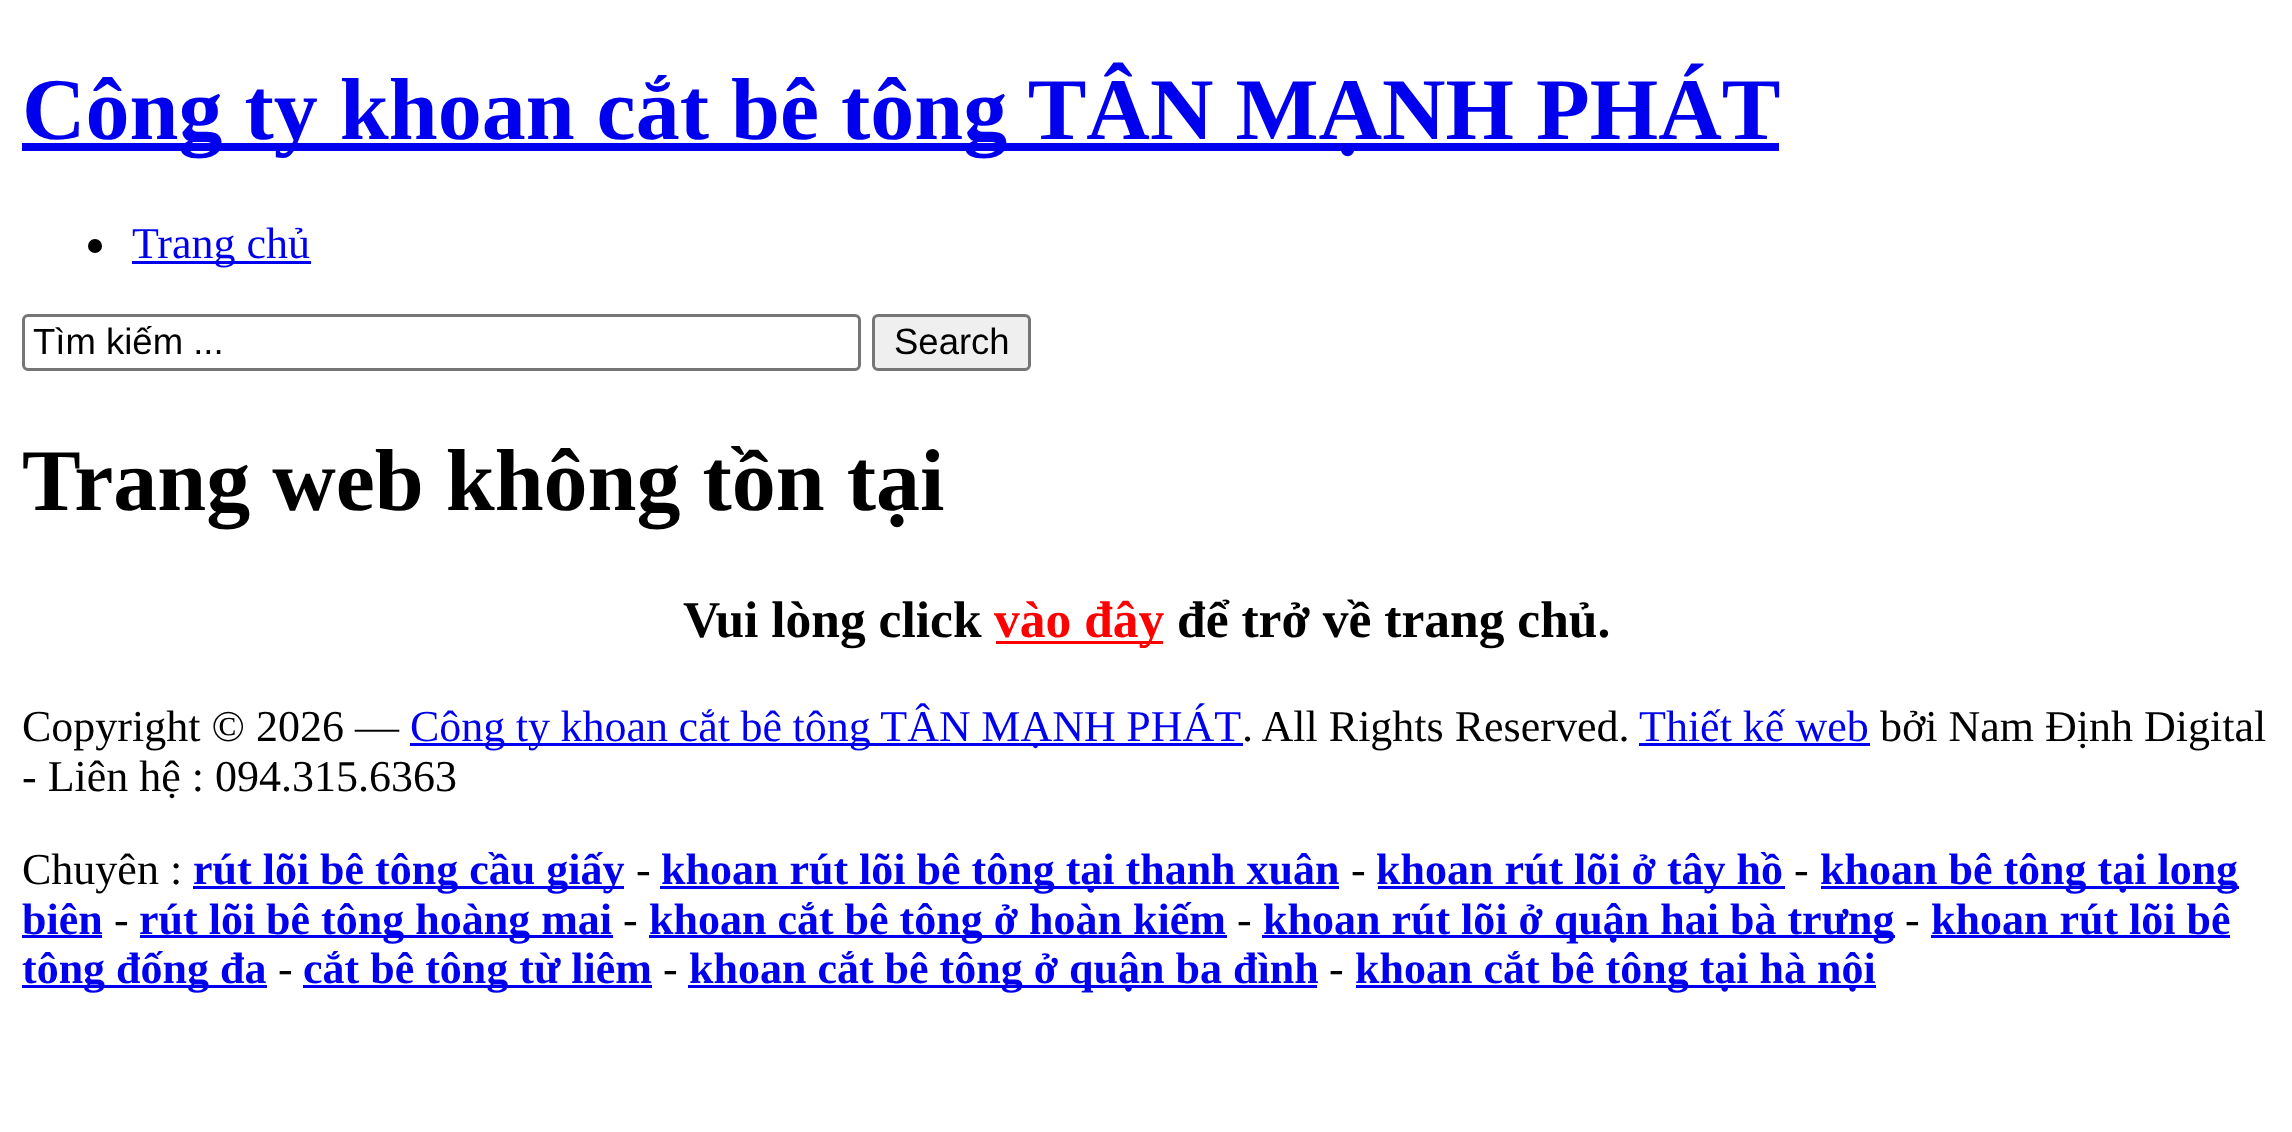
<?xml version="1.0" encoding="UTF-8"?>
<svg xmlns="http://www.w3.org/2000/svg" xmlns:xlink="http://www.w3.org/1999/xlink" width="2292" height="1132">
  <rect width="100%" height="100%" fill="#ffffff" />
  <rect x="22" y="143" width="1757" height="8" fill="#0000ee" />
  <circle cx="95" cy="246" r="7" fill="#000000" />
  <rect x="132" y="261" width="179" height="3" fill="#0000ee" />
  <rect x="23.5" y="315.5" width="836" height="54" rx="4.5" fill="none" stroke="#767676" stroke-width="3" />
  <rect x="873.5" y="315.5" width="156" height="54" rx="4.5" fill="#efefef" stroke="#767676" stroke-width="3" />
  <rect x="996" y="641" width="167" height="3" fill="#ff0000" />
  <rect x="410" y="743" width="833" height="3" fill="#0000ee" />
  <rect x="1639" y="743" width="231" height="3" fill="#0000ee" />
  <rect x="193" y="886" width="431" height="3" fill="#0000ee" />
  <rect x="660" y="886" width="679" height="3" fill="#0000ee" />
  <rect x="1378" y="886" width="407" height="3" fill="#0000ee" />
  <rect x="1821" y="886" width="418" height="3" fill="#0000ee" />
  <rect x="22" y="935" width="80" height="3" fill="#0000ee" />
  <rect x="140" y="935" width="473" height="3" fill="#0000ee" />
  <rect x="649" y="935" width="578" height="3" fill="#0000ee" />
  <rect x="1262" y="935" width="633" height="3" fill="#0000ee" />
  <rect x="1931" y="935" width="299" height="3" fill="#0000ee" />
  <rect x="22" y="985" width="245" height="3" fill="#0000ee" />
  <rect x="303" y="985" width="349" height="3" fill="#0000ee" />
  <rect x="688" y="985" width="629" height="3" fill="#0000ee" />
  <rect x="1356" y="985" width="520" height="3" fill="#0000ee" />
  <text x="22" y="139" style="font-family: Liberation Serif; font-size: 88px; font-weight: bold; fill: #0000ee">Công ty khoan cắt bê tông TÂN MẠNH PHÁT</text>
  <text x="132" y="258" style="font-family: Liberation Serif; font-size: 44px; fill: #0000ee">Trang chủ</text>
  <text x="33" y="354" style="font-family: Liberation Sans; font-size: 36.5px; fill: #000000">Tìm kiếm ...</text>
  <text x="894" y="354" style="font-family: Liberation Sans; font-size: 36.5px; fill: #000000">Search</text>
  <text x="22" y="510" style="font-family: Liberation Serif; font-size: 88px; font-weight: bold; fill: #000000">Trang web không tồn tại</text>
  <text x="683" y="637" style="font-family: Liberation Serif; font-size: 51.5px; font-weight: bold; fill: #000000">Vui lòng click</text>
  <text x="994" y="637" style="font-family: Liberation Serif; font-size: 51.5px; font-weight: bold; fill: #ff0000">vào đây</text>
  <text x="1177" y="637" style="font-family: Liberation Serif; font-size: 51.5px; font-weight: bold; fill: #000000">để trở về trang chủ.</text>
  <text x="22" y="741" style="font-family: Liberation Serif; font-size: 44px; fill: #000000">Copyright © 2026 —</text>
  <text x="410" y="741" word-spacing="-0.5" style="font-family: Liberation Serif; font-size: 44px; fill: #0000ee">Công ty khoan cắt bê tông TÂN MẠNH PHÁT</text>
  <text x="1242" y="741" style="font-family: Liberation Serif; font-size: 44px; fill: #000000">. All Rights Reserved.</text>
  <text x="1639" y="741" style="font-family: Liberation Serif; font-size: 44px; fill: #0000ee">Thiết kế web</text>
  <text x="1880" y="741" style="font-family: Liberation Serif; font-size: 44px; fill: #000000">bởi Nam Định Digital</text>
  <text x="22" y="791" style="font-family: Liberation Serif; font-size: 44px; fill: #000000">- Liên hệ : 094.315.6363</text>
  <text x="22" y="884" style="font-family: Liberation Serif; font-size: 44px; fill: #000000">Chuyên :</text>
  <text x="193" y="884" style="font-family: Liberation Serif; font-size: 44px; font-weight: bold; fill: #0000ee">rút lõi bê tông cầu giấy</text>
  <text x="636" y="884" style="font-family: Liberation Serif; font-size: 44px; fill: #000000">-</text>
  <text x="661" y="884" style="font-family: Liberation Serif; font-size: 44px; font-weight: bold; fill: #0000ee">khoan rút lõi bê tông tại thanh xuân</text>
  <text x="1351" y="884" style="font-family: Liberation Serif; font-size: 44px; fill: #000000">-</text>
  <text x="1376" y="884" style="font-family: Liberation Serif; font-size: 44px; font-weight: bold; fill: #0000ee">khoan rút lõi ở tây hồ</text>
  <text x="1794" y="884" style="font-family: Liberation Serif; font-size: 44px; fill: #000000">-</text>
  <text x="1820" y="884" style="font-family: Liberation Serif; font-size: 44px; font-weight: bold; fill: #0000ee">khoan bê tông tại long</text>
  <text x="22" y="934" style="font-family: Liberation Serif; font-size: 44px; font-weight: bold; fill: #0000ee">biên</text>
  <text x="114" y="934" style="font-family: Liberation Serif; font-size: 44px; fill: #000000">-</text>
  <text x="139" y="934" style="font-family: Liberation Serif; font-size: 44px; font-weight: bold; fill: #0000ee">rút lõi bê tông hoàng mai</text>
  <text x="623" y="934" style="font-family: Liberation Serif; font-size: 44px; fill: #000000">-</text>
  <text x="649" y="934" style="font-family: Liberation Serif; font-size: 44px; font-weight: bold; fill: #0000ee">khoan cắt bê tông ở hoàn kiếm</text>
  <text x="1237" y="934" style="font-family: Liberation Serif; font-size: 44px; fill: #000000">-</text>
  <text x="1263" y="934" style="font-family: Liberation Serif; font-size: 44px; font-weight: bold; fill: #0000ee">khoan rút lõi ở quận hai bà trưng</text>
  <text x="1905" y="934" style="font-family: Liberation Serif; font-size: 44px; fill: #000000">-</text>
  <text x="1931" y="934" style="font-family: Liberation Serif; font-size: 44px; font-weight: bold; fill: #0000ee">khoan rút lõi bê</text>
  <text x="22" y="983" style="font-family: Liberation Serif; font-size: 44px; font-weight: bold; fill: #0000ee">tông đống đa</text>
  <text x="278" y="983" style="font-family: Liberation Serif; font-size: 44px; fill: #000000">-</text>
  <text x="303" y="983" style="font-family: Liberation Serif; font-size: 44px; font-weight: bold; fill: #0000ee">cắt bê tông từ liêm</text>
  <text x="663" y="983" style="font-family: Liberation Serif; font-size: 44px; fill: #000000">-</text>
  <text x="689" y="983" style="font-family: Liberation Serif; font-size: 44px; font-weight: bold; fill: #0000ee">khoan cắt bê tông ở quận ba đình</text>
  <text x="1329" y="983" style="font-family: Liberation Serif; font-size: 44px; fill: #000000">-</text>
  <text x="1355" y="983" style="font-family: Liberation Serif; font-size: 44px; font-weight: bold; fill: #0000ee">khoan cắt bê tông tại hà nội</text>
</svg>
